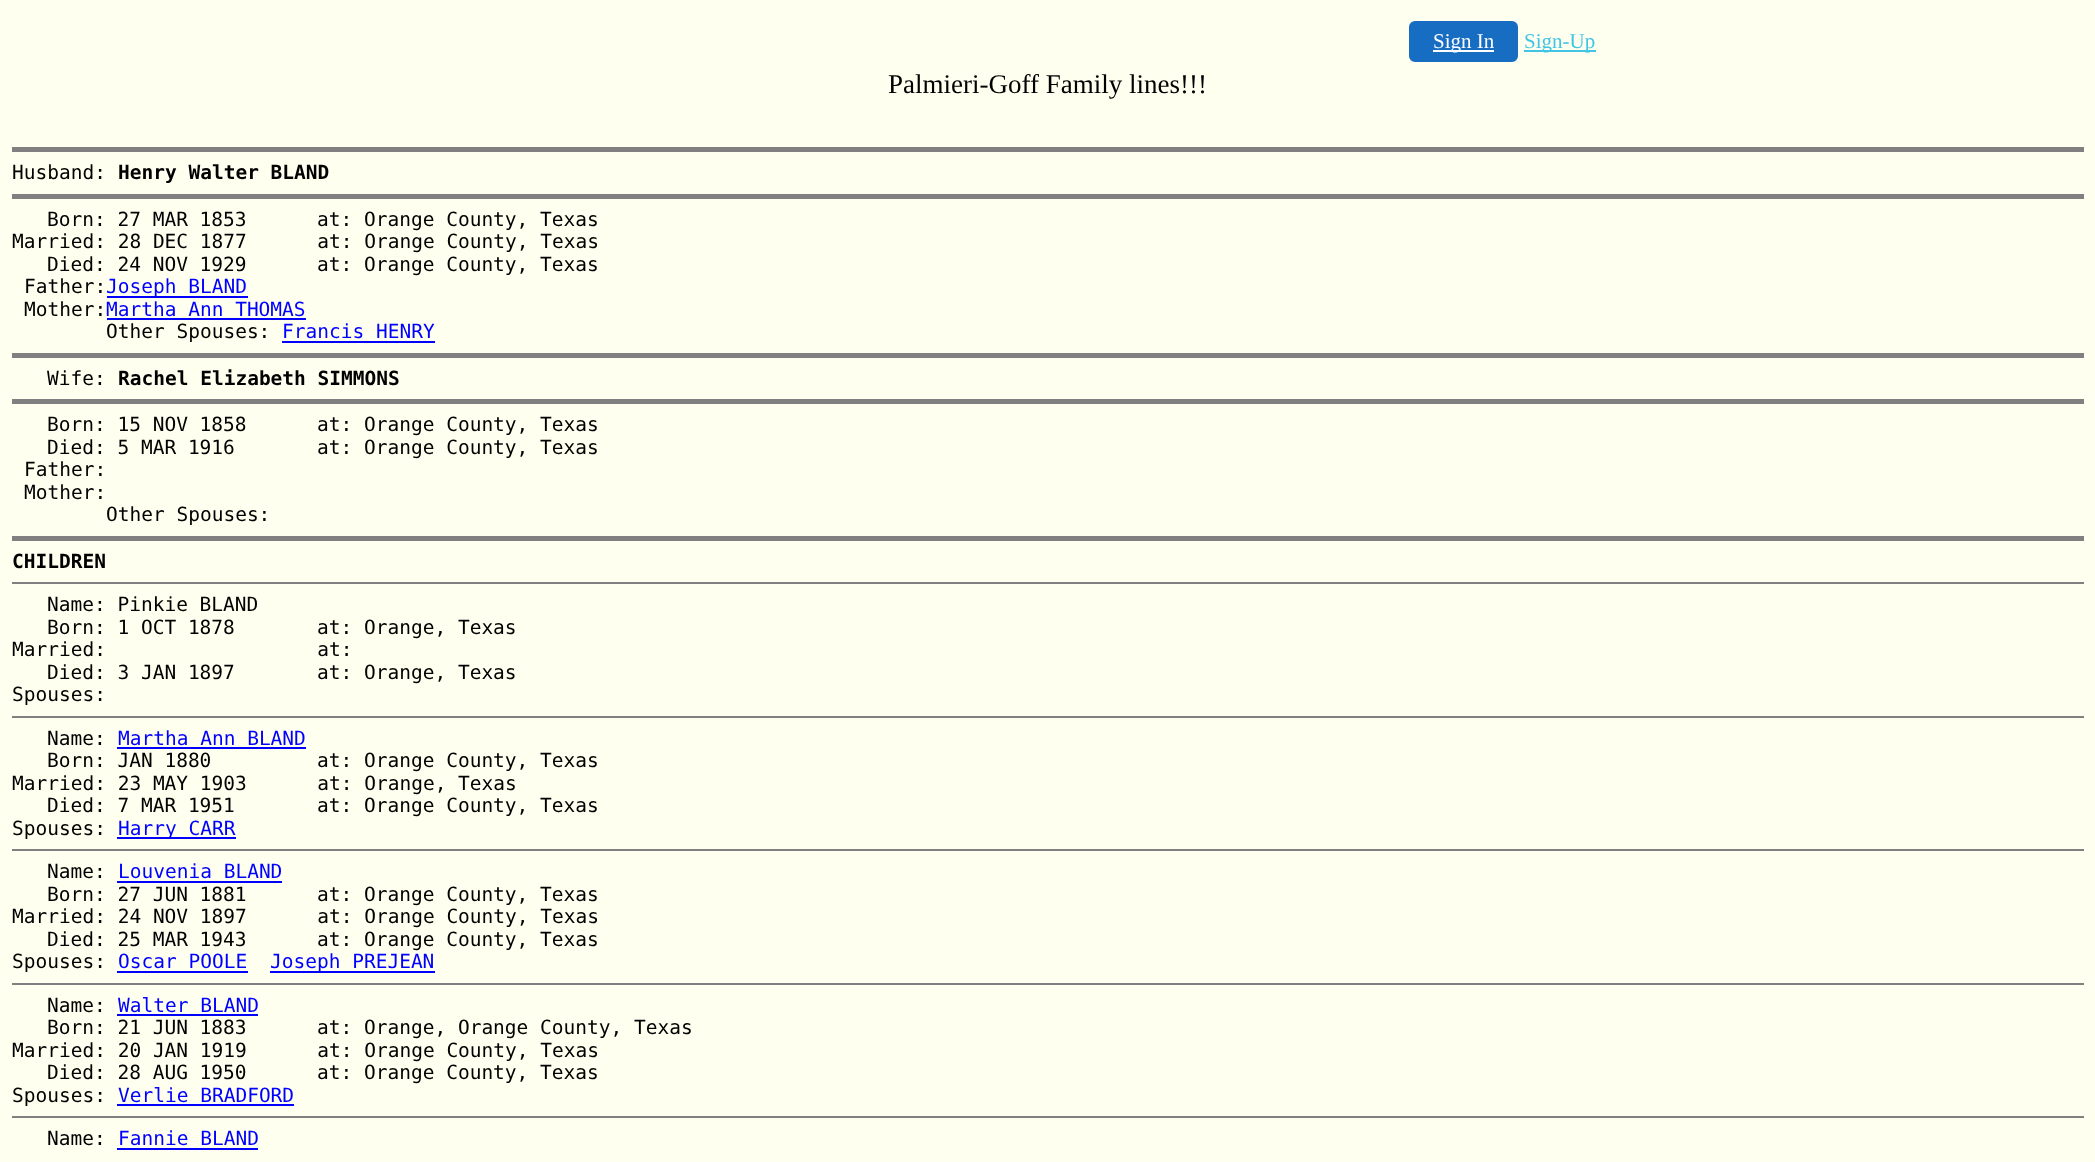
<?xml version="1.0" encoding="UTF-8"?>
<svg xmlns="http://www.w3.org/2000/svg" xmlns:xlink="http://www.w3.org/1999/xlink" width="2095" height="1162">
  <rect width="100%" height="100%" fill="#ffffef" />
  <rect x="1410" y="22" width="107" height="39" rx="5" fill="#166dc2" stroke="#166dc2" stroke-width="2" />
  <rect x="1433" y="50" width="61" height="2" fill="#ffffff" />
  <rect x="1524" y="50" width="72" height="2" fill="#41c5e4" />
  <rect x="12" y="147" width="2072" height="5" fill="#808080" />
  <rect x="12" y="194" width="2072" height="5" fill="#808080" />
  <rect x="107" y="296" width="141" height="2" fill="#0000ff" />
  <rect x="107" y="318" width="199" height="2" fill="#0000ff" />
  <rect x="282" y="341" width="153" height="2" fill="#0000ff" />
  <rect x="12" y="353" width="2072" height="5" fill="#808080" />
  <rect x="12" y="399" width="2072" height="5" fill="#808080" />
  <rect x="12" y="536" width="2072" height="5" fill="#808080" />
  <rect x="12" y="582" width="2072" height="2" fill="#808080" />
  <rect x="12" y="716" width="2072" height="2" fill="#808080" />
  <rect x="117" y="747" width="189" height="2" fill="#0000ff" />
  <rect x="117" y="837" width="119" height="2" fill="#0000ff" />
  <rect x="12" y="849" width="2072" height="2" fill="#808080" />
  <rect x="117" y="881" width="165" height="2" fill="#0000ff" />
  <rect x="117" y="971" width="131" height="2" fill="#0000ff" />
  <rect x="270" y="971" width="165" height="2" fill="#0000ff" />
  <rect x="12" y="983" width="2072" height="2" fill="#808080" />
  <rect x="117" y="1014" width="141" height="2" fill="#0000ff" />
  <rect x="117" y="1104" width="177" height="2" fill="#0000ff" />
  <rect x="12" y="1116" width="2072" height="2" fill="#808080" />
  <rect x="117" y="1148" width="141" height="2" fill="#0000ff" />
  <text x="1433" y="48" style="font-family: Liberation Serif; font-size: 21px; fill: #ffffff">Sign In</text>
  <text x="1524" y="48" style="font-family: Liberation Serif; font-size: 21px; fill: #41c5e4">Sign-Up</text>
  <text x="888" y="93" style="font-family: Liberation Serif; font-size: 27px; fill: #000000">Palmieri-Goff Family lines!!!</text>
  <text x="12" y="179" style="font-family: DejaVu Sans Mono; font-size: 19.5px; fill: #000000">Husband:</text>
  <text x="118" y="179" style="font-family: DejaVu Sans Mono; font-size: 19.5px; font-weight: bold; fill: #000000">Henry Walter BLAND</text>
  <text x="47" y="226" style="font-family: DejaVu Sans Mono; font-size: 19.5px; fill: #000000" xml:space="preserve">Born: 27 MAR 1853      at: Orange County, Texas</text>
  <text x="12" y="248" style="font-family: DejaVu Sans Mono; font-size: 19.5px; fill: #000000" xml:space="preserve">Married: 28 DEC 1877      at: Orange County, Texas</text>
  <text x="47" y="271" style="font-family: DejaVu Sans Mono; font-size: 19.5px; fill: #000000" xml:space="preserve">Died: 24 NOV 1929      at: Orange County, Texas</text>
  <text x="24" y="293" style="font-family: DejaVu Sans Mono; font-size: 19.5px; fill: #000000">Father:</text>
  <text x="106" y="293" style="font-family: DejaVu Sans Mono; font-size: 19.5px; fill: #0000ff">Joseph BLAND</text>
  <text x="24" y="316" style="font-family: DejaVu Sans Mono; font-size: 19.5px; fill: #000000">Mother:</text>
  <text x="106" y="316" style="font-family: DejaVu Sans Mono; font-size: 19.5px; fill: #0000ff">Martha Ann THOMAS</text>
  <text x="106" y="338" style="font-family: DejaVu Sans Mono; font-size: 19.5px; fill: #000000">Other Spouses:</text>
  <text x="282" y="338" style="font-family: DejaVu Sans Mono; font-size: 19.5px; fill: #0000ff">Francis HENRY</text>
  <text x="47" y="385" style="font-family: DejaVu Sans Mono; font-size: 19.5px; fill: #000000">Wife:</text>
  <text x="118" y="385" style="font-family: DejaVu Sans Mono; font-size: 19.5px; font-weight: bold; fill: #000000">Rachel Elizabeth SIMMONS</text>
  <text x="47" y="431" style="font-family: DejaVu Sans Mono; font-size: 19.5px; fill: #000000" xml:space="preserve">Born: 15 NOV 1858      at: Orange County, Texas</text>
  <text x="47" y="454" style="font-family: DejaVu Sans Mono; font-size: 19.5px; fill: #000000" xml:space="preserve">Died: 5 MAR 1916       at: Orange County, Texas</text>
  <text x="24" y="476" style="font-family: DejaVu Sans Mono; font-size: 19.5px; fill: #000000">Father:</text>
  <text x="24" y="499" style="font-family: DejaVu Sans Mono; font-size: 19.5px; fill: #000000">Mother:</text>
  <text x="106" y="521" style="font-family: DejaVu Sans Mono; font-size: 19.5px; fill: #000000">Other Spouses:</text>
  <text x="12" y="568" style="font-family: DejaVu Sans Mono; font-size: 19.5px; font-weight: bold; fill: #000000">CHILDREN</text>
  <text x="47" y="611" style="font-family: DejaVu Sans Mono; font-size: 19.5px; fill: #000000">Name: Pinkie BLAND</text>
  <text x="47" y="634" style="font-family: DejaVu Sans Mono; font-size: 19.5px; fill: #000000" xml:space="preserve">Born: 1 OCT 1878       at: Orange, Texas</text>
  <text x="12" y="656" style="font-family: DejaVu Sans Mono; font-size: 19.5px; fill: #000000" xml:space="preserve">Married:                  at:</text>
  <text x="47" y="679" style="font-family: DejaVu Sans Mono; font-size: 19.5px; fill: #000000" xml:space="preserve">Died: 3 JAN 1897       at: Orange, Texas</text>
  <text x="12" y="701" style="font-family: DejaVu Sans Mono; font-size: 19.5px; fill: #000000">Spouses:</text>
  <text x="47" y="745" style="font-family: DejaVu Sans Mono; font-size: 19.5px; fill: #000000">Name:</text>
  <text x="118" y="745" style="font-family: DejaVu Sans Mono; font-size: 19.5px; fill: #0000ff">Martha Ann BLAND</text>
  <text x="47" y="767" style="font-family: DejaVu Sans Mono; font-size: 19.5px; fill: #000000" xml:space="preserve">Born: JAN 1880         at: Orange County, Texas</text>
  <text x="12" y="790" style="font-family: DejaVu Sans Mono; font-size: 19.5px; fill: #000000" xml:space="preserve">Married: 23 MAY 1903      at: Orange, Texas</text>
  <text x="47" y="812" style="font-family: DejaVu Sans Mono; font-size: 19.5px; fill: #000000" xml:space="preserve">Died: 7 MAR 1951       at: Orange County, Texas</text>
  <text x="12" y="835" style="font-family: DejaVu Sans Mono; font-size: 19.5px; fill: #000000">Spouses:</text>
  <text x="118" y="835" style="font-family: DejaVu Sans Mono; font-size: 19.5px; fill: #0000ff">Harry CARR</text>
  <text x="47" y="878" style="font-family: DejaVu Sans Mono; font-size: 19.5px; fill: #000000">Name:</text>
  <text x="118" y="878" style="font-family: DejaVu Sans Mono; font-size: 19.5px; fill: #0000ff">Louvenia BLAND</text>
  <text x="47" y="901" style="font-family: DejaVu Sans Mono; font-size: 19.5px; fill: #000000" xml:space="preserve">Born: 27 JUN 1881      at: Orange County, Texas</text>
  <text x="12" y="923" style="font-family: DejaVu Sans Mono; font-size: 19.5px; fill: #000000" xml:space="preserve">Married: 24 NOV 1897      at: Orange County, Texas</text>
  <text x="47" y="946" style="font-family: DejaVu Sans Mono; font-size: 19.5px; fill: #000000" xml:space="preserve">Died: 25 MAR 1943      at: Orange County, Texas</text>
  <text x="12" y="968" style="font-family: DejaVu Sans Mono; font-size: 19.5px; fill: #000000">Spouses:</text>
  <text x="118" y="968" style="font-family: DejaVu Sans Mono; font-size: 19.5px; fill: #0000ff">Oscar POOLE</text>
  <text x="270" y="968" style="font-family: DejaVu Sans Mono; font-size: 19.5px; fill: #0000ff">Joseph PREJEAN</text>
  <text x="47" y="1012" style="font-family: DejaVu Sans Mono; font-size: 19.5px; fill: #000000">Name:</text>
  <text x="118" y="1012" style="font-family: DejaVu Sans Mono; font-size: 19.5px; fill: #0000ff">Walter BLAND</text>
  <text x="47" y="1034" style="font-family: DejaVu Sans Mono; font-size: 19.5px; fill: #000000" xml:space="preserve">Born: 21 JUN 1883      at: Orange, Orange County, Texas</text>
  <text x="12" y="1057" style="font-family: DejaVu Sans Mono; font-size: 19.5px; fill: #000000" xml:space="preserve">Married: 20 JAN 1919      at: Orange County, Texas</text>
  <text x="47" y="1079" style="font-family: DejaVu Sans Mono; font-size: 19.5px; fill: #000000" xml:space="preserve">Died: 28 AUG 1950      at: Orange County, Texas</text>
  <text x="12" y="1102" style="font-family: DejaVu Sans Mono; font-size: 19.5px; fill: #000000">Spouses:</text>
  <text x="118" y="1102" style="font-family: DejaVu Sans Mono; font-size: 19.5px; fill: #0000ff">Verlie BRADFORD</text>
  <text x="47" y="1145" style="font-family: DejaVu Sans Mono; font-size: 19.5px; fill: #000000">Name:</text>
  <text x="118" y="1145" style="font-family: DejaVu Sans Mono; font-size: 19.5px; fill: #0000ff">Fannie BLAND</text>
</svg>
